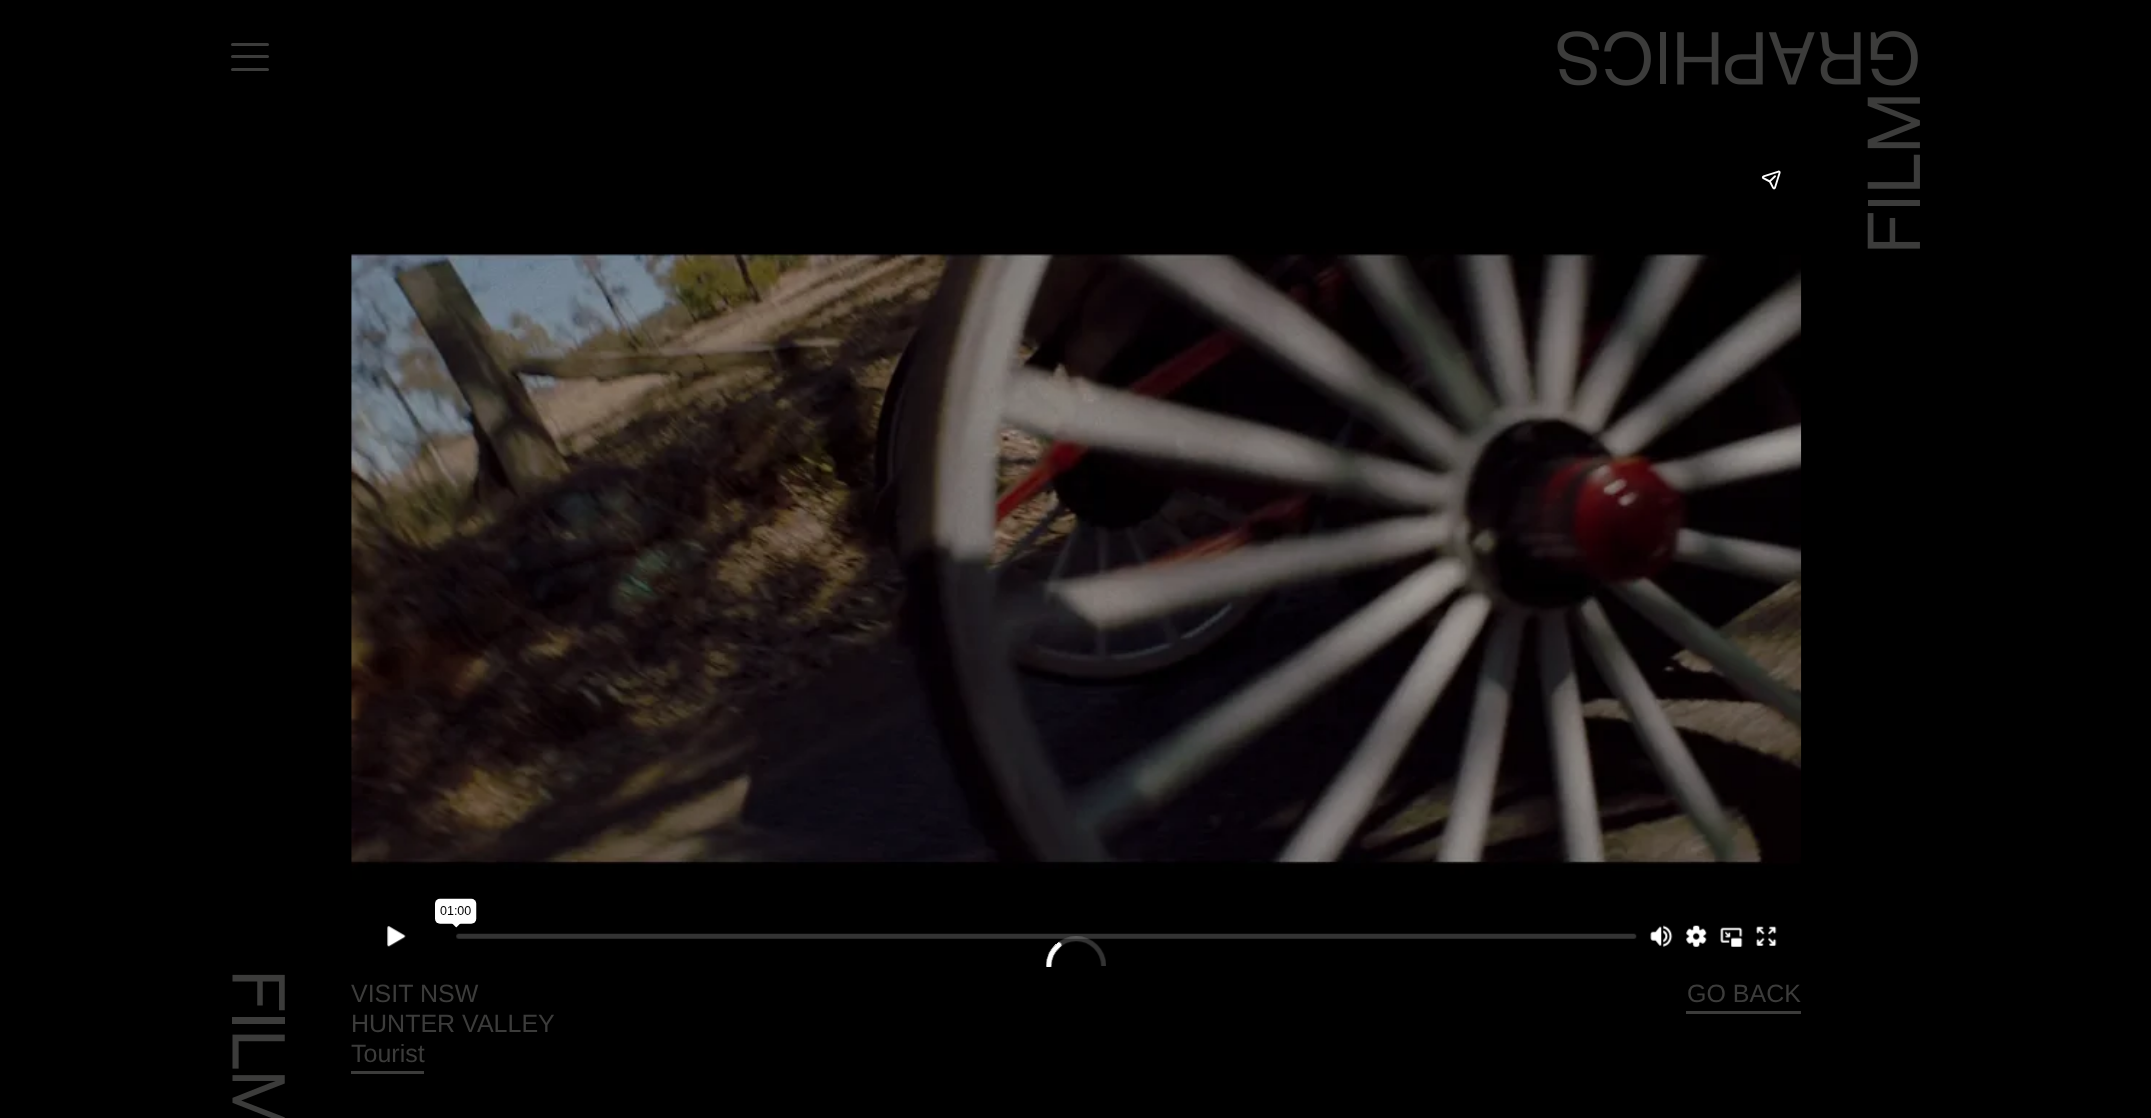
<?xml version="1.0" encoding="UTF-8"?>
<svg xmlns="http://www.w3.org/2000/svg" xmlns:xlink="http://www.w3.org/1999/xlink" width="2151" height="1118">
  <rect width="100%" height="100%" fill="#000000" />
  <rect x="231" y="55" width="38" height="3" rx="1.5" fill="#3c3c3b" />
  <rect x="231" y="43" width="38" height="3" rx="1.5" fill="#3c3c3b" />
  <rect x="231" y="68" width="38" height="3" rx="1.5" fill="#3c3c3b" />
  <image x="351" y="170" width="1451" height="797" xlink:href="image3.png" />
  <image x="1557" y="31" width="363" height="218" xlink:href="image1.png" />
  <image x="232" y="974" width="53" height="144" xlink:href="image2.png" />
  <rect x="351" y="1071" width="73" height="3" fill="#3c3c3b" />
  <rect x="1686" y="1011" width="115" height="3" fill="#3c3c3b" />
  <text x="351" y="1002" style="font-family: Liberation Sans; font-size: 25px; fill: #3c3c3b">VISIT NSW</text>
  <text x="351" y="1032" style="font-family: Liberation Sans; font-size: 25px; fill: #3c3c3b">HUNTER VALLEY</text>
  <text x="351" y="1062" style="font-family: Liberation Sans; font-size: 25px; fill: #3c3c3b">Tourist</text>
  <text x="1687" y="1002" style="font-family: Liberation Sans; font-size: 25px; fill: #3c3c3b">GO BACK</text>
</svg>
